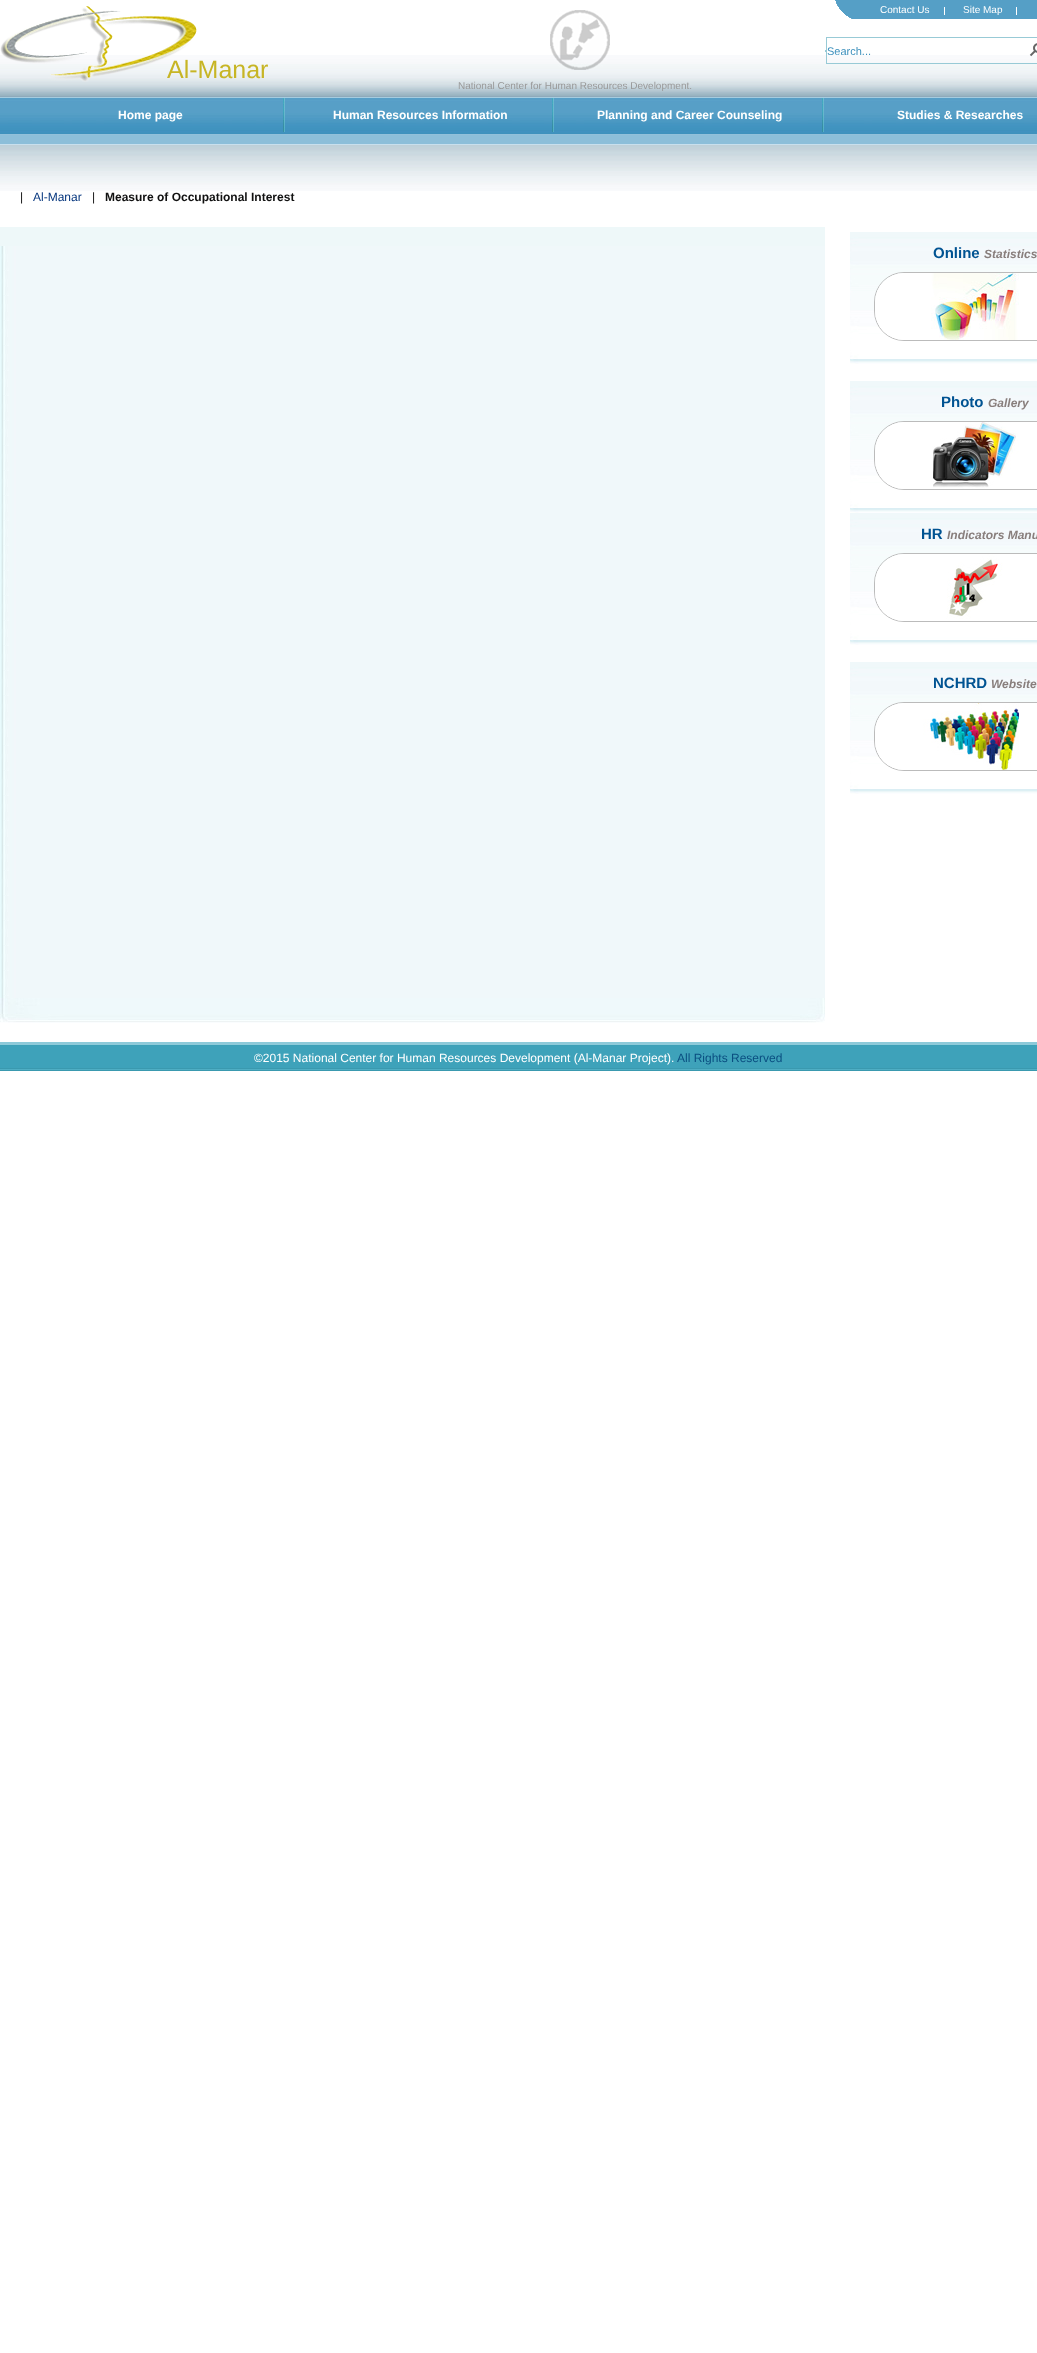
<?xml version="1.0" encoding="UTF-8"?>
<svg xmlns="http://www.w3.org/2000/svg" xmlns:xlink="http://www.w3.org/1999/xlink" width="1037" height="2353">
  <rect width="100%" height="100%" fill="#ffffff" />
  <image x="0" y="55" width="1037" height="136" xlink:href="image1.png" />
  <image x="835" y="0" width="30" height="19" xlink:href="image2.png" />
  <rect x="865" width="172" height="19" fill="#559fc6" />
  <image x="944" y="7" width="1" height="8" xlink:href="image3.png" />
  <image x="1016" y="7" width="1" height="8" xlink:href="image3.png" />
  <rect x="825" y="50" width="2" height="2" fill="#98cad6" />
  <rect x="826.5" y="37.5" width="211" height="26" fill="none" stroke="#98cad6" />
  <image x="1029" y="43" width="8" height="14" xlink:href="image4.png" />
  <image x="0" y="6" width="197" height="76" xlink:href="image5.png" />
  <image x="550" y="10" width="60" height="60" xlink:href="image6.png" />
  <image x="283" y="98" width="2" height="34" xlink:href="image7.png" />
  <image x="552" y="98" width="2" height="34" xlink:href="image7.png" />
  <image x="822" y="98" width="2" height="34" xlink:href="image7.png" />
  <rect y="227" width="825" height="19" fill="#eef8f9" />
  <image x="0" y="246" width="825" height="752" xlink:href="image8.png" />
  <image x="0" y="998" width="825" height="25" xlink:href="image9.png" />
  <image x="850" y="232" width="187" height="132" xlink:href="image10.png" />
  <rect x="874.5" y="272.5" width="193" height="68" rx="29.5" fill="none" stroke="#bbbbbb" />
  <image x="875" y="273" width="162" height="67" xlink:href="image11.png" />
  <image x="850" y="381" width="187" height="132" xlink:href="image10.png" />
  <rect x="874.5" y="421.5" width="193" height="68" rx="29.5" fill="none" stroke="#bbbbbb" />
  <image x="875" y="422" width="162" height="67" xlink:href="image12.png" />
  <image x="850" y="513" width="187" height="132" xlink:href="image10.png" />
  <rect x="874.5" y="553.5" width="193" height="68" rx="29.5" fill="none" stroke="#bbbbbb" />
  <image x="875" y="554" width="162" height="67" xlink:href="image13.png" />
  <image x="850" y="662" width="187" height="132" xlink:href="image10.png" />
  <rect x="874.5" y="702.5" width="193" height="68" rx="29.5" fill="none" stroke="#bbbbbb" />
  <image x="875" y="703" width="162" height="67" xlink:href="image14.png" />
  <image x="0" y="1042" width="1037" height="29" xlink:href="image15.png" />
  <text x="880" y="13" style="font-family: Liberation Sans; font-size: 10px; fill: #ffffff">Contact Us</text>
  <text x="963" y="13" style="font-family: Liberation Sans; font-size: 10px; fill: #ffffff">Site Map</text>
  <text x="827" y="55" style="font-family: Liberation Sans; font-size: 11px; fill: #3e91bd">Search...</text>
  <text x="167" y="78" style="font-family: Liberation Sans; font-size: 25px; fill: #c7b525">Al-Manar</text>
  <text x="458" y="89" style="font-family: Liberation Sans; font-size: 10px; fill: #999999">National Center for Human Resources Development.</text>
  <text x="118" y="119" style="font-family: Liberation Sans; font-size: 12px; font-weight: bold; fill: #ffffff">Home page</text>
  <text x="333" y="119" style="font-family: Liberation Sans; font-size: 12px; font-weight: bold; fill: #ffffff">Human Resources Information</text>
  <text x="597" y="119" style="font-family: Liberation Sans; font-size: 12px; font-weight: bold; fill: #ffffff">Planning and Career Counseling</text>
  <text x="897" y="119" style="font-family: Liberation Sans; font-size: 12px; font-weight: bold; fill: #ffffff">Studies &amp; Researches</text>
  <text x="20" y="201" style="font-family: Liberation Sans; font-size: 12px; fill: #111111">|</text>
  <text x="33" y="201" style="font-family: Liberation Sans; font-size: 12px; fill: #08387f">Al-Manar</text>
  <text x="92" y="201" style="font-family: Liberation Sans; font-size: 12px; fill: #111111">|</text>
  <text x="105" y="201" style="font-family: Liberation Sans; font-size: 12px; font-weight: bold; fill: #111111">Measure of Occupational Interest</text>
  <text x="933" y="258" style="font-family: Liberation Sans; font-size: 15px; font-weight: bold; fill: #005392">Online</text>
  <text x="984" y="258" style="font-family: Liberation Sans; font-size: 12px; font-weight: bold; font-style: italic; fill: #887e7c">Statistics</text>
  <text x="941" y="407" style="font-family: Liberation Sans; font-size: 15px; font-weight: bold; fill: #005392">Photo</text>
  <text x="988" y="407" style="font-family: Liberation Sans; font-size: 12px; font-weight: bold; font-style: italic; fill: #887e7c">Gallery</text>
  <text x="921" y="539" style="font-family: Liberation Sans; font-size: 15px; font-weight: bold; fill: #005392">HR</text>
  <text x="947" y="539" style="font-family: Liberation Sans; font-size: 12px; font-weight: bold; font-style: italic; fill: #887e7c">Indicators Manu</text>
  <text x="933" y="688" style="font-family: Liberation Sans; font-size: 15px; font-weight: bold; fill: #005392">NCHRD</text>
  <text x="991" y="688" style="font-family: Liberation Sans; font-size: 12px; font-weight: bold; font-style: italic; fill: #887e7c">Website</text>
  <text x="254" y="1062" style="font-family: Liberation Sans; font-size: 12px; fill: #ffffff">©2015 National Center for Human Resources Development (Al-Manar Project).</text>
  <text x="677" y="1062" style="font-family: Liberation Sans; font-size: 12px; fill: #0a4e80">All Rights Reserved</text>
</svg>
